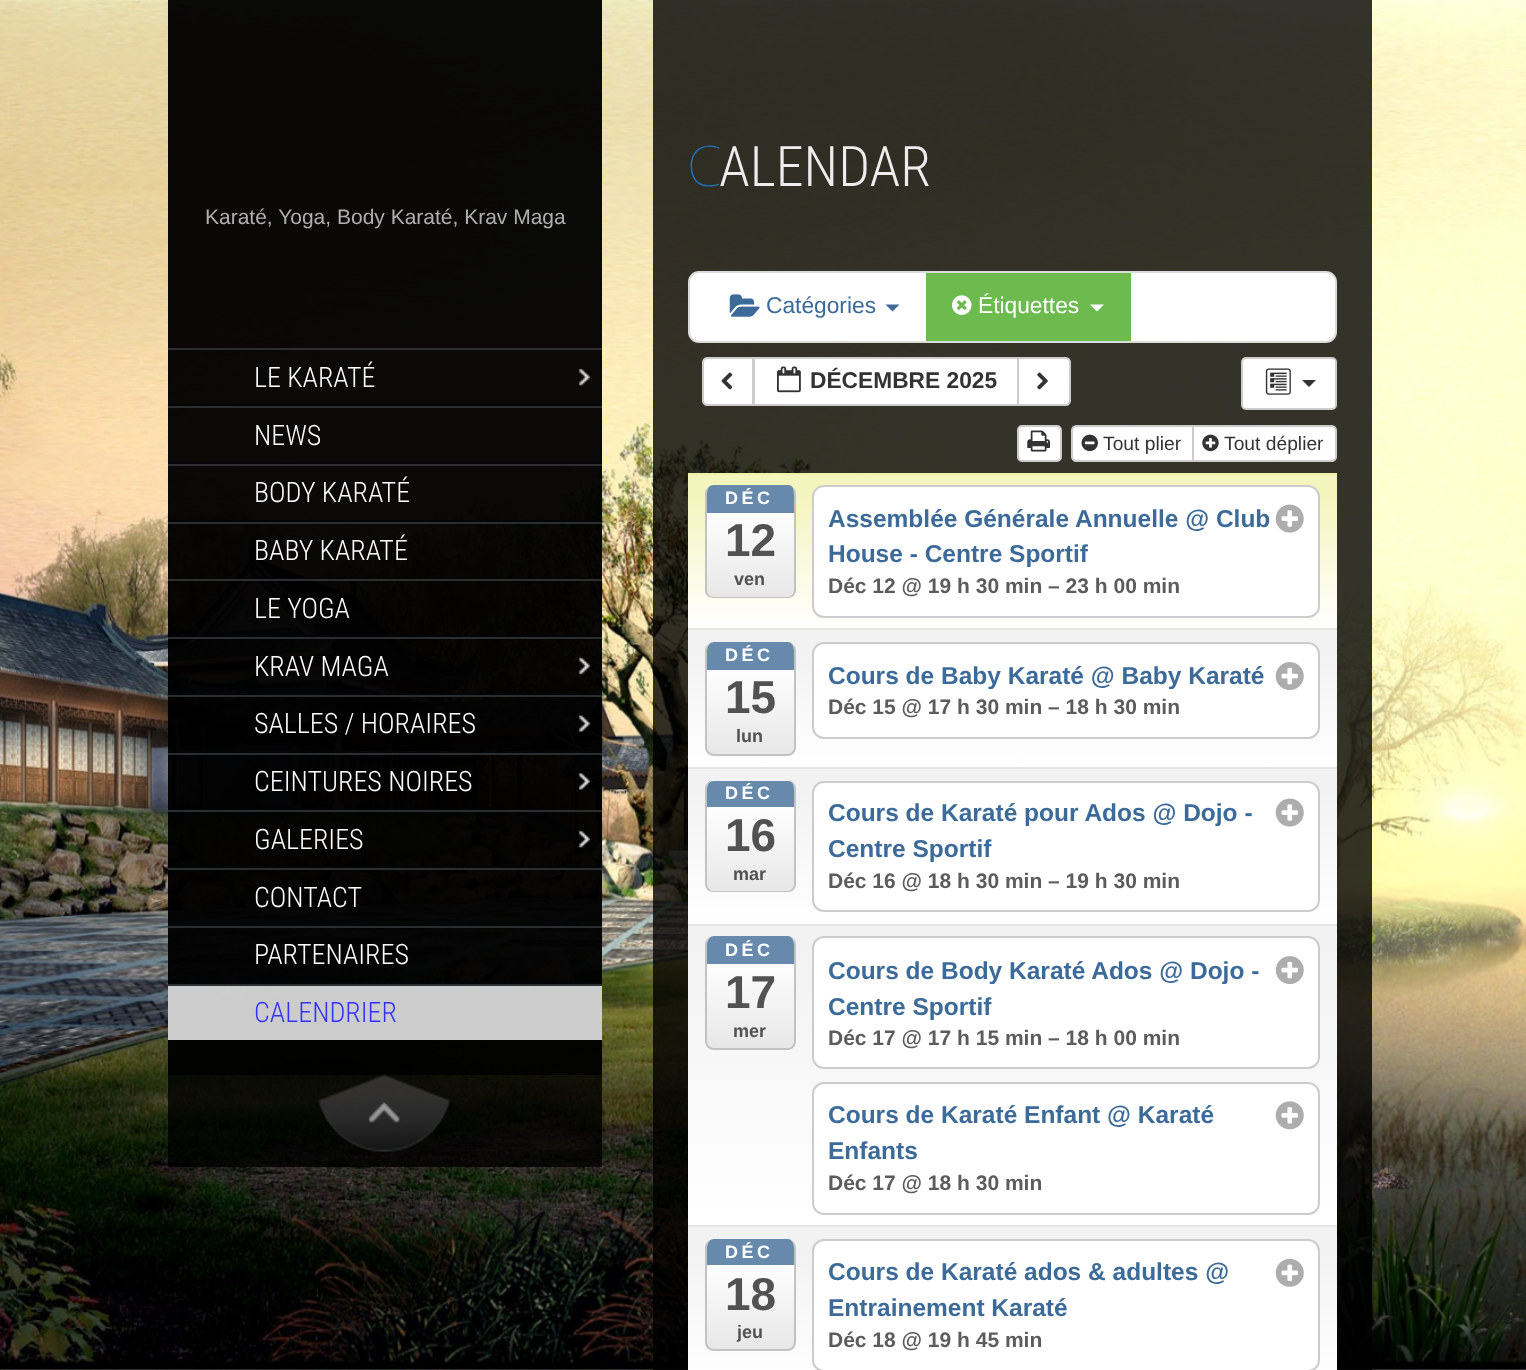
<?xml version="1.0" encoding="UTF-8"?>
<svg xmlns="http://www.w3.org/2000/svg" xmlns:xlink="http://www.w3.org/1999/xlink" width="1526" height="1370">
  <defs>
    <linearGradient id="g1" gradientUnits="userSpaceOnUse" x1="1012" y1="474" x2="1012" y2="628"><stop offset="0" stop-color="#f4f4bf" /><stop offset="0.15" stop-color="#f4f4bf" /><stop offset="1" stop-color="#ffffff" /></linearGradient>
    <clipPath id="clip1"><rect x="705" y="485" width="91" height="114" rx="9" /></clipPath>
    <linearGradient id="g2" gradientUnits="userSpaceOnUse" x1="751" y1="485" x2="751" y2="597"><stop offset="0" stop-color="#ffffff" /><stop offset="0.2" stop-color="#ffffff" /><stop offset="1" stop-color="#e7e7e7" /></linearGradient>
    <linearGradient id="g3" gradientUnits="userSpaceOnUse" x1="1012" y1="630" x2="1012" y2="767"><stop offset="0" stop-color="#f2f2f2" /><stop offset="0.17" stop-color="#f2f2f2" /><stop offset="1" stop-color="#ffffff" /></linearGradient>
    <clipPath id="clip2"><rect x="705" y="642" width="91" height="114" rx="9" /></clipPath>
    <linearGradient id="g4" gradientUnits="userSpaceOnUse" x1="751" y1="642" x2="751" y2="754"><stop offset="0" stop-color="#ffffff" /><stop offset="0.2" stop-color="#ffffff" /><stop offset="1" stop-color="#e7e7e7" /></linearGradient>
    <linearGradient id="g5" gradientUnits="userSpaceOnUse" x1="1012" y1="768" x2="1012" y2="924"><stop offset="0" stop-color="#f2f2f2" /><stop offset="0.15" stop-color="#f2f2f2" /><stop offset="1" stop-color="#ffffff" /></linearGradient>
    <clipPath id="clip3"><rect x="705" y="781" width="91" height="112" rx="9" /></clipPath>
    <linearGradient id="g6" gradientUnits="userSpaceOnUse" x1="751" y1="781" x2="751" y2="891"><stop offset="0" stop-color="#ffffff" /><stop offset="0.21" stop-color="#ffffff" /><stop offset="1" stop-color="#e7e7e7" /></linearGradient>
    <linearGradient id="g7" gradientUnits="userSpaceOnUse" x1="1012" y1="926" x2="1012" y2="1225"><stop offset="0" stop-color="#f2f2f2" /><stop offset="0.08" stop-color="#f2f2f2" /><stop offset="1" stop-color="#ffffff" /></linearGradient>
    <clipPath id="clip4"><rect x="705" y="936" width="91" height="114" rx="9" /></clipPath>
    <linearGradient id="g8" gradientUnits="userSpaceOnUse" x1="751" y1="936" x2="751" y2="1048"><stop offset="0" stop-color="#ffffff" /><stop offset="0.2" stop-color="#ffffff" /><stop offset="1" stop-color="#e7e7e7" /></linearGradient>
    <linearGradient id="g9" gradientUnits="userSpaceOnUse" x1="1012" y1="1227" x2="1012" y2="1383"><stop offset="0" stop-color="#f2f2f2" /><stop offset="0.15" stop-color="#f2f2f2" /><stop offset="1" stop-color="#ffffff" /></linearGradient>
    <clipPath id="clip5"><rect x="705" y="1239" width="91" height="112" rx="9" /></clipPath>
    <linearGradient id="g10" gradientUnits="userSpaceOnUse" x1="751" y1="1239" x2="751" y2="1349"><stop offset="0" stop-color="#ffffff" /><stop offset="0.21" stop-color="#ffffff" /><stop offset="1" stop-color="#e7e7e7" /></linearGradient>
  </defs>
  <rect width="100%" height="100%" fill="#ffffff" />
  <image x="0" y="0" width="1526" height="1370" xlink:href="image1.png" />
  <rect x="168" width="434" height="1167" fill="#000000" fill-opacity="0.8" />
  <rect x="168" width="434" height="348" fill="#000000" fill-opacity="0.8" />
  <rect x="168" y="350" width="434" height="725" fill="#000000" fill-opacity="0.8" />
  <image x="578" y="368" width="13" height="18" xlink:href="image2.png" />
  <rect x="168" y="348" width="434" height="2" fill="#2c2d2e" />
  <rect x="168" y="404" width="434" height="2" fill="#040506" />
  <rect x="168" y="406" width="434" height="2" fill="#2c2d2e" />
  <rect x="168" y="462" width="434" height="2" fill="#040506" />
  <rect x="168" y="464" width="434" height="2" fill="#2c2d2e" />
  <rect x="168" y="520" width="434" height="2" fill="#040506" />
  <rect x="168" y="522" width="434" height="2" fill="#2c2d2e" />
  <rect x="168" y="578" width="434" height="1" fill="#040506" />
  <rect x="168" y="579" width="434" height="2" fill="#2c2d2e" />
  <rect x="168" y="635" width="434" height="2" fill="#040506" />
  <image x="578" y="657" width="13" height="18" xlink:href="image3.png" />
  <rect x="168" y="637" width="434" height="2" fill="#2c2d2e" />
  <rect x="168" y="693" width="434" height="2" fill="#040506" />
  <image x="578" y="715" width="13" height="17" xlink:href="image4.png" />
  <rect x="168" y="695" width="434" height="2" fill="#2c2d2e" />
  <rect x="168" y="751" width="434" height="2" fill="#040506" />
  <image x="578" y="773" width="13" height="17" xlink:href="image5.png" />
  <rect x="168" y="753" width="434" height="2" fill="#2c2d2e" />
  <rect x="168" y="809" width="434" height="1" fill="#040506" />
  <image x="578" y="830" width="13" height="18" xlink:href="image6.png" />
  <rect x="168" y="810" width="434" height="2" fill="#2c2d2e" />
  <rect x="168" y="866" width="434" height="2" fill="#040506" />
  <rect x="168" y="868" width="434" height="2" fill="#2c2d2e" />
  <rect x="168" y="924" width="434" height="2" fill="#040506" />
  <rect x="168" y="926" width="434" height="2" fill="#2c2d2e" />
  <rect x="168" y="982" width="434" height="2" fill="#040506" />
  <rect x="168" y="986" width="434" height="54" fill="#ffffff" fill-opacity="0.8" />
  <rect x="168" y="984" width="434" height="2" fill="#2c2d2e" />
  <image x="318" y="1074" width="132" height="78" xlink:href="image7.png" />
  <rect x="653" width="719" height="1370" fill="#000000" fill-opacity="0.8" />
  <rect x="689" y="272" width="647" height="70" rx="10" fill="#ffffff" stroke="#dbdbdb" stroke-width="2" />
  <image x="729" y="294" width="31" height="23" xlink:href="image8.png" />
  <path d="M 885.5 304.5 h 14 l -7 7 z" fill="#3d6b99" />
  <rect x="926" y="273" width="205" height="68" fill="#6dbb4f" />
  <image x="952" y="295" width="20" height="20" xlink:href="image9.png" />
  <path d="M 1090 304.5 h 14 l -7 7 z" fill="#ffffff" />
  <rect x="1242" y="358" width="94" height="51" rx="4" fill="#ffffff" stroke="#cccccc" stroke-width="2" />
  <image x="1265" y="368" width="26" height="27" xlink:href="image10.png" />
  <path d="M 1302 380 h 14 l -7 7 z" fill="#333333" />
  <path d="M 707 358 h 46 v 47 h -46 c -2 0 -4 -2 -4 -4 v -39 c 0 -2 2 -4 4 -4 z" fill="#ffffff" stroke="#cccccc" stroke-width="2" />
  <image x="721" y="372" width="12" height="18" xlink:href="image11.png" />
  <rect x="754" y="358" width="264" height="47" fill="#ffffff" stroke="#cccccc" stroke-width="2" />
  <image x="777" y="366" width="24" height="27" xlink:href="image12.png" />
  <path d="M 1018 358 h 48 c 2 0 4 2 4 4 v 39 c 0 2 -2 4 -4 4 h -48 z" fill="#ffffff" stroke="#cccccc" stroke-width="2" />
  <image x="1037" y="372" width="11" height="18" xlink:href="image13.png" />
  <rect x="1018" y="426" width="43" height="35" rx="4" fill="#ffffff" stroke="#cccccc" stroke-width="2" />
  <image x="1027" y="430" width="23" height="22" xlink:href="image14.png" />
  <path d="M 1076 426 h 117 v 35 h -117 c -2 0 -4 -2 -4 -4 v -27 c 0 -2 2 -4 4 -4 z" fill="#ffffff" stroke="#cccccc" stroke-width="2" />
  <image x="1081" y="434" width="17" height="18" xlink:href="image15.png" />
  <path d="M 1193 426 h 139 c 2 0 4 2 4 4 v 27 c 0 2 -2 4 -4 4 h -139 z" fill="#ffffff" stroke="#cccccc" stroke-width="2" />
  <image x="1202" y="434" width="17" height="18" xlink:href="image16.png" />
  <rect x="688" y="475" width="649" height="153" fill="url(#g1)" />
  <rect x="688" y="473" width="649" height="2" fill="#f0f0a9" />
  <g clip-path="url(#clip1)">
    <rect x="707" y="485" width="88" height="112" fill="url(#g2)" />
  </g>
  <path d="M 714 485 h 74 c 4 0 8 4 8 9 v 96 c 0 5 -4 8 -8 8 h -74 c -5 0 -9 -3 -9 -8 v -96 c 0 -5 4 -9 9 -9 z m 0 0 h 74 c 3 0 6 4 6 9 v 96 c 0 4 -3 7 -6 7 h -74 c -4 0 -7 -3 -7 -7 v -96 c 0 -5 3 -9 7 -9 z" fill="#c2c2c2" fill-rule="evenodd" />
  <path d="M 714 485 c -8 0 -7 10 -7 15 v 13 h 87 v -13 c 0 -5 1 -15 -6 -15 z" fill="#6689ac" />
  <rect x="813" y="486" width="506" height="131" rx="11" fill="#ffffff" stroke="#cccccc" stroke-width="2" />
  <image x="1275" y="504" width="29" height="29" xlink:href="image17.png" />
  <rect x="688" y="630" width="649" height="137" fill="url(#g3)" />
  <rect x="688" y="628" width="649" height="2" fill="#e5e5e5" />
  <g clip-path="url(#clip2)">
    <rect x="707" y="642" width="88" height="112" fill="url(#g4)" />
  </g>
  <path d="M 714 642 h 74 c 4 0 8 4 8 9 v 96 c 0 5 -4 9 -8 9 h -74 c -5 0 -9 -4 -9 -9 v -96 c 0 -5 4 -9 9 -9 z m 0 0 h 74 c 3 0 6 4 6 9 v 96 c 0 4 -3 7 -6 7 h -74 c -4 0 -7 -3 -7 -7 v -96 c 0 -5 3 -9 7 -9 z" fill="#c2c2c2" fill-rule="evenodd" />
  <path d="M 714 642 c -4 0 -7 4 -7 9 v 19 h 87 v -19 c 0 -5 -3 -9 -6 -9 z" fill="#6689ac" />
  <rect x="813" y="643" width="506" height="95" rx="11" fill="#ffffff" stroke="#cccccc" stroke-width="2" />
  <image x="1275" y="662" width="29" height="29" xlink:href="image18.png" />
  <rect x="688" y="769" width="649" height="155" fill="url(#g5)" />
  <rect x="688" y="767" width="649" height="2" fill="#e5e5e5" />
  <g clip-path="url(#clip3)">
    <rect x="707" y="781" width="88" height="110" fill="url(#g6)" />
  </g>
  <path d="M 714 780 h 74 c 4 0 8 4 8 9 v 95 c 0 5 -4 8 -8 8 h -74 c -5 0 -9 -3 -9 -8 v -95 c 0 -5 4 -9 9 -9 z m 0 0 h 74 c 3 0 6 4 6 9 v 95 c 0 4 -3 7 -6 7 h -74 c -4 0 -7 -3 -7 -7 v -95 c 0 -5 3 -9 7 -9 z" fill="#c2c2c2" fill-rule="evenodd" />
  <path d="M 714 781 c -8 0 -7 9 -7 14 v 12 h 87 v -12 c 0 -5 1 -14 -6 -14 z" fill="#6689ac" />
  <rect x="813" y="782" width="506" height="129" rx="11" fill="#ffffff" stroke="#cccccc" stroke-width="2" />
  <image x="1275" y="798" width="29" height="29" xlink:href="image17.png" />
  <rect x="688" y="926" width="649" height="299" fill="url(#g7)" />
  <rect x="688" y="924" width="649" height="2" fill="#e5e5e5" />
  <g clip-path="url(#clip4)">
    <rect x="707" y="936" width="88" height="112" fill="url(#g8)" />
  </g>
  <path d="M 714 936 h 74 c 4 0 8 4 8 9 v 96 c 0 5 -4 9 -8 9 h -74 c -5 0 -9 -4 -9 -9 v -96 c 0 -5 4 -9 9 -9 z m 0 0 h 74 c 3 0 6 4 6 9 v 96 c 0 4 -3 7 -6 7 h -74 c -4 0 -7 -3 -7 -7 v -96 c 0 -5 3 -9 7 -9 z" fill="#c2c2c2" fill-rule="evenodd" />
  <path d="M 714 936 c -4 0 -7 4 -7 9 v 19 h 87 v -19 c 0 -5 -3 -9 -6 -9 z" fill="#6689ac" />
  <rect x="813" y="937" width="506" height="131" rx="11" fill="#ffffff" stroke="#cccccc" stroke-width="2" />
  <image x="1275" y="956" width="29" height="29" xlink:href="image18.png" />
  <rect x="813" y="1083" width="506" height="131" rx="11" fill="#ffffff" stroke="#cccccc" stroke-width="2" />
  <image x="1275" y="1101" width="29" height="29" xlink:href="image19.png" />
  <rect x="688" y="1227" width="649" height="143" fill="url(#g9)" />
  <rect x="688" y="1225" width="649" height="2" fill="#e5e5e5" />
  <g clip-path="url(#clip5)">
    <rect x="707" y="1239" width="88" height="110" fill="url(#g10)" />
  </g>
  <path d="M 714 1239 h 74 c 4 0 8 4 8 9 v 94 c 0 5 -4 9 -8 9 h -74 c -5 0 -9 -4 -9 -9 v -94 c 0 -5 4 -9 9 -9 z m 0 0 h 74 c 3 0 6 4 6 9 v 94 c 0 4 -3 7 -6 7 h -74 c -4 0 -7 -3 -7 -7 v -94 c 0 -5 3 -9 7 -9 z" fill="#c2c2c2" fill-rule="evenodd" />
  <path d="M 714 1239 c -4 0 -7 4 -7 9 v 17 h 87 v -17 c 0 -5 -3 -9 -6 -9 z" fill="#6689ac" />
  <rect x="813" y="1240" width="506" height="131" rx="11" fill="#ffffff" stroke="#cccccc" stroke-width="2" />
  <image x="1275" y="1258" width="29" height="29" xlink:href="image20.png" />
  <text x="205" y="224" style="font-family: Liberation Sans; font-size: 21px; fill: #aeaeae">Karaté, Yoga, Body Karaté, Krav Maga</text>
  <text x="254" y="387" style="font-family: Roboto Condensed; font-size: 28px; font-weight: 300; fill: #ffffff">LE KARATÉ</text>
  <text x="254" y="445" style="font-family: Roboto Condensed; font-size: 28px; font-weight: 300; fill: #ffffff">NEWS</text>
  <text x="254" y="502" style="font-family: Roboto Condensed; font-size: 28px; font-weight: 300; fill: #ffffff">BODY KARATÉ</text>
  <text x="254" y="560" style="font-family: Roboto Condensed; font-size: 28px; font-weight: 300; fill: #ffffff">BABY KARATÉ</text>
  <text x="254" y="618" style="font-family: Roboto Condensed; font-size: 28px; font-weight: 300; fill: #ffffff">LE YOGA</text>
  <text x="254" y="676" style="font-family: Roboto Condensed; font-size: 28px; font-weight: 300; fill: #ffffff">KRAV MAGA</text>
  <text x="254" y="733" style="font-family: Roboto Condensed; font-size: 28px; font-weight: 300; fill: #ffffff">SALLES / HORAIRES</text>
  <text x="254" y="791" style="font-family: Roboto Condensed; font-size: 28px; font-weight: 300; fill: #ffffff">CEINTURES NOIRES</text>
  <text x="254" y="849" style="font-family: Roboto Condensed; font-size: 28px; font-weight: 300; fill: #ffffff">GALERIES</text>
  <text x="254" y="907" style="font-family: Roboto Condensed; font-size: 28px; font-weight: 300; fill: #ffffff">CONTACT</text>
  <text x="254" y="964" style="font-family: Roboto Condensed; font-size: 28px; font-weight: 300; fill: #ffffff">PARTENAIRES</text>
  <text x="254" y="1022" style="font-family: Roboto Condensed; font-size: 28px; font-weight: 300; fill: #3333ff">CALENDRIER</text>
  <text x="687" y="186" style="font-family: Noto Sans; font-size: 56px; font-weight: 100; fill: #1e73be">C</text>
  <text x="719" y="186" style="font-family: Roboto Condensed; font-size: 56px; font-weight: 300; fill: #eeeded">ALENDAR</text>
  <text x="766" y="313" style="font-family: Liberation Sans; font-size: 22.75px; fill: #3d6b99">Catégories</text>
  <text x="978" y="313" style="font-family: Liberation Sans; font-size: 22.75px; fill: #ffffff">Étiquettes</text>
  <text x="810" y="388" style="font-family: Liberation Sans; font-size: 22.75px; font-weight: bold; fill: #333333">DÉCEMBRE 2025</text>
  <text x="1103" y="450" style="font-family: Liberation Sans; font-size: 19.25px; fill: #333333">Tout plier</text>
  <text x="1224" y="450" style="font-family: Liberation Sans; font-size: 19.25px; fill: #333333">Tout déplier</text>
  <text x="725" y="504" style="font-family: Liberation Sans; font-size: 18px; font-weight: bold; letter-spacing: 3.5px; fill: #ffffff">DÉC</text>
  <text x="725" y="556" style="font-family: Liberation Sans; font-size: 46px; font-weight: bold; fill: #525252">12</text>
  <text x="734" y="585" style="font-family: Liberation Sans; font-size: 18px; font-weight: bold; fill: #525252">ven</text>
  <text x="828" y="527" style="font-family: Liberation Sans; font-size: 24.5px; font-weight: bold; fill: #3d6b99">Assemblée Générale Annuelle @ Club</text>
  <text x="828" y="562" style="font-family: Liberation Sans; font-size: 24.5px; font-weight: bold; fill: #3d6b99">House - Centre Sportif</text>
  <text x="828" y="593" style="font-family: Liberation Sans; font-size: 21px; font-weight: bold; fill: #5c5c5c">Déc 12 @ 19 h 30 min – 23 h 00 min</text>
  <text x="725" y="661" style="font-family: Liberation Sans; font-size: 18px; font-weight: bold; letter-spacing: 3.5px; fill: #ffffff">DÉC</text>
  <text x="725" y="713" style="font-family: Liberation Sans; font-size: 46px; font-weight: bold; fill: #525252">15</text>
  <text x="736" y="742" style="font-family: Liberation Sans; font-size: 18px; font-weight: bold; fill: #525252">lun</text>
  <text x="828" y="684" style="font-family: Liberation Sans; font-size: 24.5px; font-weight: bold; fill: #3d6b99">Cours de Baby Karaté @ Baby Karaté</text>
  <text x="828" y="714" style="font-family: Liberation Sans; font-size: 21px; font-weight: bold; fill: #5c5c5c">Déc 15 @ 17 h 30 min – 18 h 30 min</text>
  <text x="725" y="799" style="font-family: Liberation Sans; font-size: 18px; font-weight: bold; letter-spacing: 3.5px; fill: #ffffff">DÉC</text>
  <text x="725" y="851" style="font-family: Liberation Sans; font-size: 46px; font-weight: bold; fill: #525252">16</text>
  <text x="733" y="880" style="font-family: Liberation Sans; font-size: 18px; font-weight: bold; fill: #525252">mar</text>
  <text x="828" y="821" style="font-family: Liberation Sans; font-size: 24.5px; font-weight: bold; fill: #3d6b99">Cours de Karaté pour Ados @ Dojo -</text>
  <text x="828" y="857" style="font-family: Liberation Sans; font-size: 24.5px; font-weight: bold; fill: #3d6b99">Centre Sportif</text>
  <text x="828" y="888" style="font-family: Liberation Sans; font-size: 21px; font-weight: bold; fill: #5c5c5c">Déc 16 @ 18 h 30 min – 19 h 30 min</text>
  <text x="725" y="956" style="font-family: Liberation Sans; font-size: 18px; font-weight: bold; letter-spacing: 3.5px; fill: #ffffff">DÉC</text>
  <text x="725" y="1008" style="font-family: Liberation Sans; font-size: 46px; font-weight: bold; fill: #525252">17</text>
  <text x="733" y="1037" style="font-family: Liberation Sans; font-size: 18px; font-weight: bold; fill: #525252">mer</text>
  <text x="828" y="979" style="font-family: Liberation Sans; font-size: 24.5px; font-weight: bold; fill: #3d6b99">Cours de Body Karaté Ados @ Dojo -</text>
  <text x="828" y="1015" style="font-family: Liberation Sans; font-size: 24.5px; font-weight: bold; fill: #3d6b99">Centre Sportif</text>
  <text x="828" y="1045" style="font-family: Liberation Sans; font-size: 21px; font-weight: bold; fill: #5c5c5c">Déc 17 @ 17 h 15 min – 18 h 00 min</text>
  <text x="828" y="1123" style="font-family: Liberation Sans; font-size: 24.5px; font-weight: bold; fill: #3d6b99">Cours de Karaté Enfant @ Karaté</text>
  <text x="828" y="1159" style="font-family: Liberation Sans; font-size: 24.5px; font-weight: bold; fill: #3d6b99">Enfants</text>
  <text x="828" y="1190" style="font-family: Liberation Sans; font-size: 21px; font-weight: bold; fill: #5c5c5c">Déc 17 @ 18 h 30 min</text>
  <text x="725" y="1258" style="font-family: Liberation Sans; font-size: 18px; font-weight: bold; letter-spacing: 3.5px; fill: #ffffff">DÉC</text>
  <text x="725" y="1310" style="font-family: Liberation Sans; font-size: 46px; font-weight: bold; fill: #525252">18</text>
  <text x="737" y="1338" style="font-family: Liberation Sans; font-size: 18px; font-weight: bold; fill: #525252">jeu</text>
  <text x="828" y="1280" style="font-family: Liberation Sans; font-size: 24.5px; font-weight: bold; fill: #3d6b99">Cours de Karaté ados &amp; adultes @</text>
  <text x="828" y="1316" style="font-family: Liberation Sans; font-size: 24.5px; font-weight: bold; fill: #3d6b99">Entrainement Karaté</text>
  <text x="828" y="1347" style="font-family: Liberation Sans; font-size: 21px; font-weight: bold; fill: #5c5c5c">Déc 18 @ 19 h 45 min</text>
</svg>
